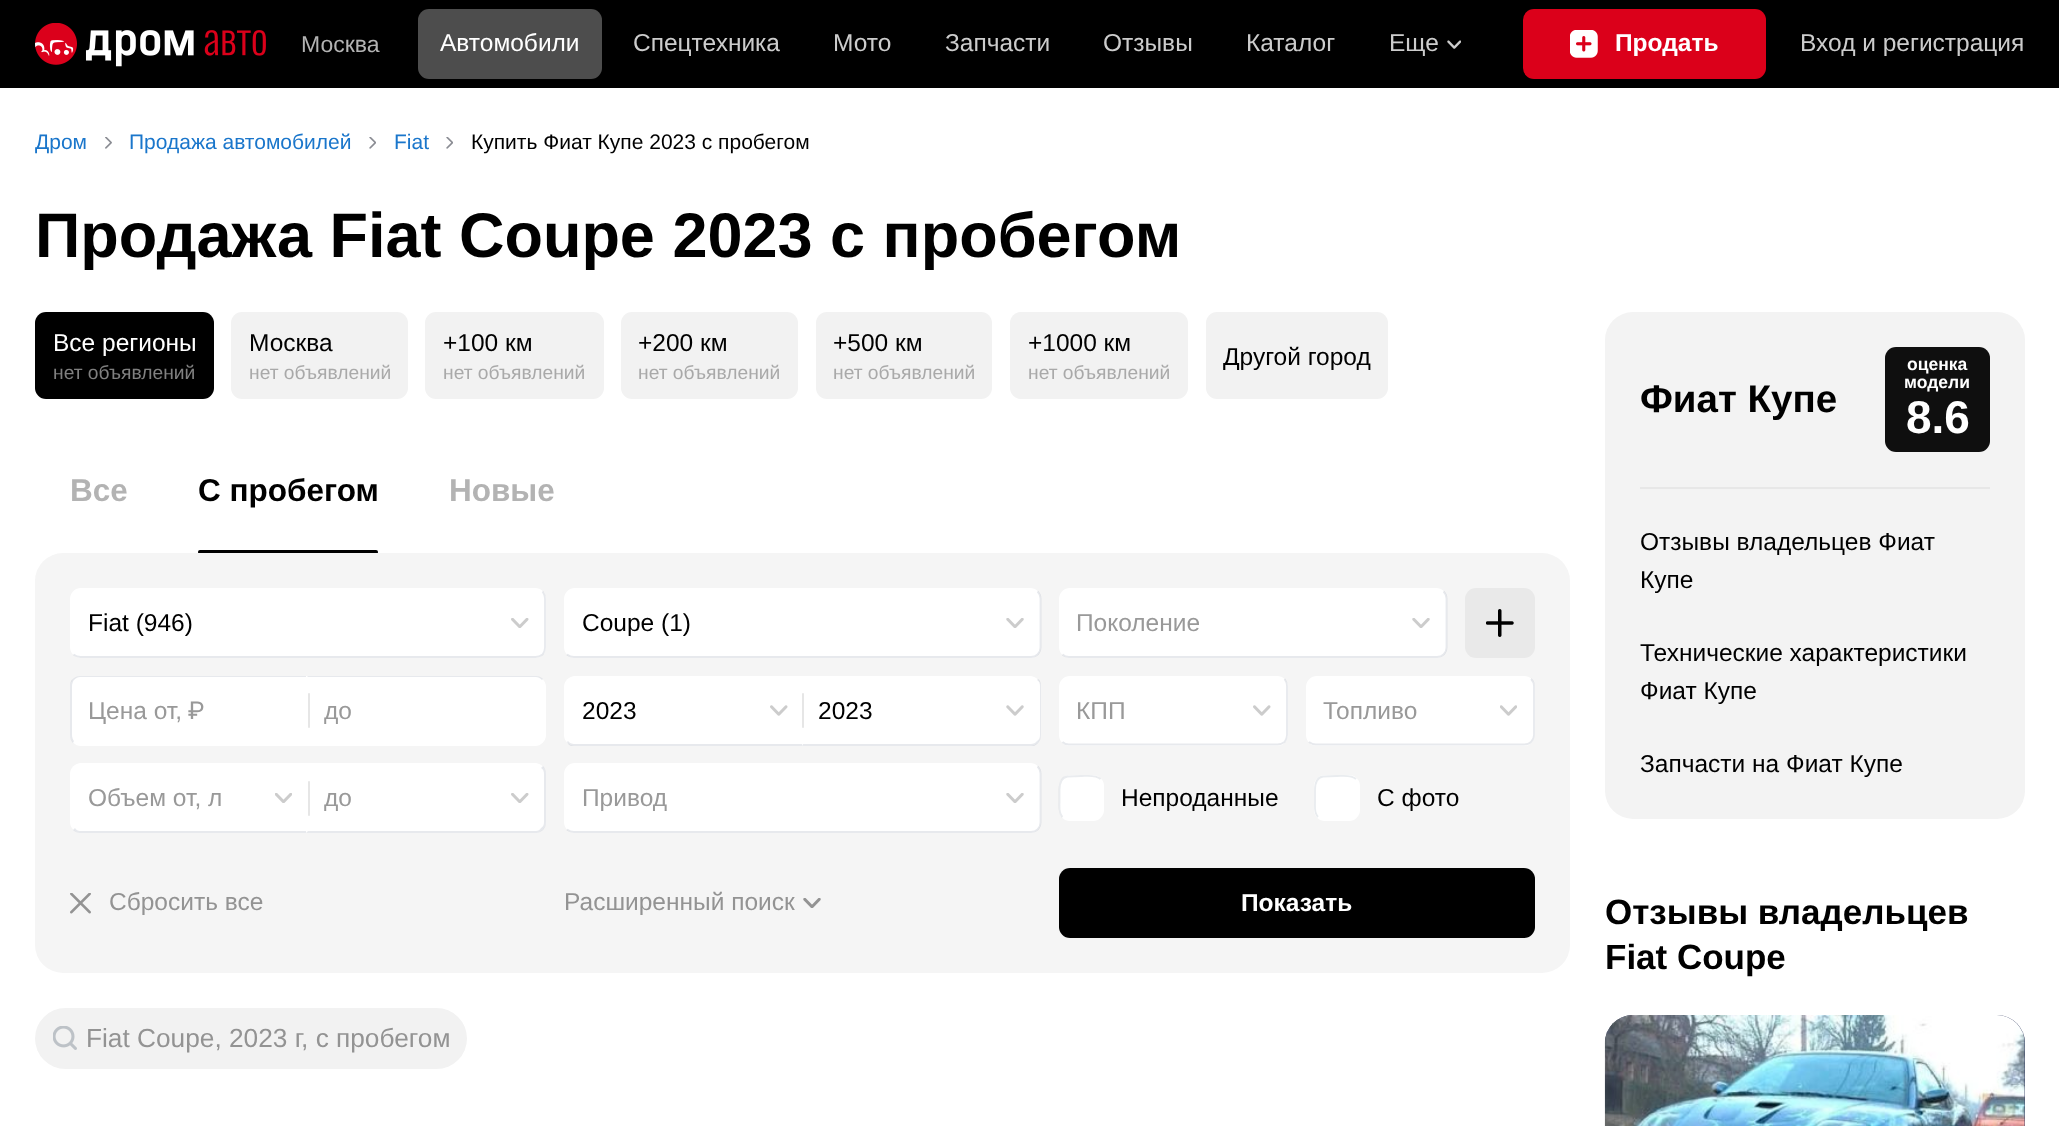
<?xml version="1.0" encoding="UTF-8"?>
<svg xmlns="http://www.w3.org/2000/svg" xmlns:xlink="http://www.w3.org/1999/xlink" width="2059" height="1126">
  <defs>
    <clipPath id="clip1"><rect x="70" y="469" width="1500" height="84" /></clipPath>
  </defs>
  <rect width="100%" height="100%" fill="#ffffff" />
  <rect width="2059" height="88" fill="#000000" />
  <image x="35" y="23" width="231" height="44" xlink:href="image1.png" />
  <image x="1447" y="40" width="14" height="9" xlink:href="image2.png" />
  <rect x="1523" y="9" width="243" height="70" rx="11" fill="#db001a" />
  <image x="1570" y="30" width="28" height="28" xlink:href="image3.png" />
  <image x="105" y="137" width="7" height="12" xlink:href="image4.png" />
  <image x="369" y="137" width="7" height="12" xlink:href="image5.png" />
  <image x="446" y="137" width="7" height="12" xlink:href="image5.png" />
  <rect x="35" y="312" width="179" height="87" rx="11" fill="#000000" />
  <rect x="231" y="312" width="177" height="87" rx="11" fill="#f2f2f2" />
  <rect x="425" y="312" width="179" height="87" rx="11" fill="#f2f2f2" />
  <rect x="621" y="312" width="177" height="87" rx="11" fill="#f2f2f2" />
  <rect x="816" y="312" width="176" height="87" rx="11" fill="#f2f2f2" />
  <rect x="1010" y="312" width="178" height="87" rx="11" fill="#f2f2f2" />
  <rect x="1206" y="312" width="182" height="87" rx="11" fill="#f2f2f2" />
  <rect x="35" y="553" width="1535" height="420" rx="28" fill="#f5f5f5" />
  <g clip-path="url(#clip1)">
    <rect x="198" y="550" width="180" height="4" rx="2" fill="#000000" />
  </g>
  <rect x="70" y="588" width="476" height="70" rx="11" fill="#ffffff" />
  <path d="M 542.5 591.5 c 1.5 2 2.5 4.5 2.5 7 v 49 c 0 2.5 -1 5 -2.5 7 c -2 1.5 -4.5 2.5 -7 2.5 h -455 c -2.5 0 -5 -1 -7 -2.5" fill="none" stroke="#11284b" stroke-opacity="0.1" stroke-width="1.8" />
  <image x="511" y="618" width="18" height="10" xlink:href="image6.png" />
  <rect x="564" y="588" width="477" height="70" rx="11" fill="#ffffff" />
  <path d="M 1037.5 591.5 c 2 2 3 4.5 3 7 v 49 c 0 2.5 -1 5 -3 7 c -1.5 1.5 -4 2.5 -6.5 2.5 h -457 c -2.5 0 -5 -1 -7 -2.5" fill="none" stroke="#11284b" stroke-opacity="0.1" stroke-width="1.8" />
  <image x="1006" y="618" width="18" height="10" xlink:href="image7.png" />
  <rect x="1059" y="588" width="388" height="70" rx="11" fill="#ffffff" />
  <path d="M 1443.5 591.5 c 2 2 3 4.5 3 7 v 49 c 0 2.5 -1 5 -3 7 c -1.5 1.5 -4 2.5 -6.5 2.5 h -368 c -2.5 0 -5 -1 -6.5 -2.5" fill="none" stroke="#11284b" stroke-opacity="0.1" stroke-width="1.8" />
  <image x="1412" y="618" width="18" height="10" xlink:href="image7.png" />
  <rect x="1465" y="588" width="70" height="70" rx="11" fill="#e9e9e9" />
  <image x="1486" y="609" width="28" height="28" xlink:href="image8.png" />
  <path d="M 81 676 h 229 v 70 h -229 c -6 0 -11 -5 -11 -11 v -48 c 0 -6 5 -11 11 -11 z" fill="#ffffff" />
  <path d="M 80 676 c -2 0 -5 1 -7 3 l 1 1 c 2 -2 4 -3 6 -3 h 228 l 1 -1 z" fill="#11284b" fill-opacity="0.1" />
  <path d="M 70 686 v 49 c 0 3 1 6 3 8 l 1 -2 c -1 -1 -2 -4 -2 -6 v -49 c 0 -2 1 -5 2 -6 l -1 -1 c -2 1 -3 4 -3 7 z" fill="#11284b" fill-opacity="0.1" />
  <path d="M 306 676 h 229 c 6 0 11 5 11 11 v 48 c 0 6 -5 11 -11 11 h -229 z" fill="#ffffff" />
  <rect x="308" y="693" width="2" height="35" rx="1" fill="#e6e6e6" />
  <path d="M 308 677 h 228 c 2 0 4 1 6 3 l 1 -1 c -2 -2 -5 -3 -7 -3 h -229 z" fill="#11284b" fill-opacity="0.1" />
  <path d="M 575 676 h 230 v 70 h -230 c -6 0 -11 -5 -11 -11 v -48 c 0 -6 5 -11 11 -11 z" fill="#ffffff" />
  <path d="M 805 746 h -234 c -2 -1 -3 -2 -4 -4 l 1 -1 c 1 2 4 3 6 3 h 229 z" fill="#11284b" fill-opacity="0.1" />
  <image x="770" y="705" width="18" height="11" xlink:href="image9.png" />
  <path d="M 802 676 h 228 c 6 0 11 5 11 11 v 48 c 0 6 -5 11 -11 11 h -228 z" fill="#ffffff" />
  <rect x="802" y="693" width="2" height="35" rx="1" fill="#e6e6e6" />
  <path d="M 1038 679 c 2 1 3 4 3 7 v 49 c 0 3 -1 6 -3 8 l -1 -2 c 2 -1 3 -3 3 -6 v -49 c 0 -3 -1 -5 -3 -6 z" fill="#11284b" fill-opacity="0.1" />
  <path d="M 802 746 l 1 -2 h 228 c 2 0 5 -1 6 -3 l 1 2 c -1 1 -2 2 -4 3 z" fill="#11284b" fill-opacity="0.1" />
  <image x="1006" y="705" width="18" height="11" xlink:href="image10.png" />
  <rect x="1059" y="676" width="229" height="70" rx="11" fill="#ffffff" />
  <path d="M 1284.5 679 c 1.5 2 2.5 4.5 2.5 7 v 49 c 0 2.5 -1 5 -2.5 7 c -2 1.5 -4.5 2.5 -7 2.5 h -208.5 c -2.5 0 -5 -1 -6.5 -2.5" fill="none" stroke="#11284b" stroke-opacity="0.1" stroke-width="1.8" />
  <image x="1253" y="705" width="18" height="11" xlink:href="image9.png" />
  <rect x="1306" y="676" width="229" height="70" rx="11" fill="#ffffff" />
  <path d="M 1531 679 c 2 2 3 4.5 3 7 v 49 c 0 2.5 -1 5 -3 7 c -1.5 1.5 -4 2.5 -7 2.5 h -208 c -2.5 0 -5 -1 -7 -2.5" fill="none" stroke="#11284b" stroke-opacity="0.1" stroke-width="1.8" />
  <image x="1500" y="705" width="17" height="11" xlink:href="image11.png" />
  <path d="M 81 763 h 229 v 70 h -229 c -6 0 -11 -5 -11 -11 v -48 c 0 -6 5 -11 11 -11 z" fill="#ffffff" />
  <path d="M 310 833 l -2 -2 h -228 c -2 0 -4 -1 -5 -3 l -2 2 c 2 2 5 3 7 3 z" fill="#11284b" fill-opacity="0.1" />
  <image x="275" y="793" width="17" height="10" xlink:href="image12.png" />
  <path d="M 306 763 h 229 c 6 0 11 5 11 11 v 48 c 0 6 -5 11 -11 11 h -229 z" fill="#ffffff" />
  <rect x="308" y="781" width="2" height="35" rx="1" fill="#e6e6e6" />
  <path d="M 546 822 v -48 c 0 -3 -1 -6 -3 -8 l -2 2 c 2 1 3 3 3 6 v 48 c 0 3 -1 5 -3 6 l 2 2 c 2 -2 3 -5 3 -8 z" fill="#11284b" fill-opacity="0.1" />
  <path d="M 306 833 h 230 c 2 0 5 -1 7 -3 l -2 -2 c -1 2 -3 3 -5 3 h -228 z" fill="#11284b" fill-opacity="0.1" />
  <image x="511" y="793" width="18" height="10" xlink:href="image6.png" />
  <rect x="564" y="763" width="477" height="70" rx="11" fill="#ffffff" />
  <path d="M 1037.5 766.5 c 2 2 3 4.5 3 7 v 49 c 0 2.5 -1 5 -3 7 c -1.5 1.5 -4 2.5 -6.5 2.5 h -457 c -2.5 0 -5 -1 -7 -2.5" fill="none" stroke="#11284b" stroke-opacity="0.1" stroke-width="1.8" />
  <image x="1006" y="793" width="18" height="10" xlink:href="image7.png" />
  <rect x="1059" y="775" width="45" height="46" rx="11" fill="#ffffff" />
  <path d="M 1062.5 817 c -4 -4 -3 -10 -3 -15 v -12 c 0 -6 1 -12.5 8 -13.5 l 14 -0.5 c 5.5 0 14.5 -1.5 19 3" fill="none" stroke="#11284b" stroke-opacity="0.09" stroke-width="1.8" />
  <rect x="1314" y="775" width="46" height="46" rx="11" fill="#ffffff" />
  <path d="M 1318 817 c -4 -4 -3 -10 -3 -15 v -12 c 0 -6 1 -12.5 8 -13.5 l 14 -0.5 c 5.5 0 14.5 -1.5 19 3" fill="none" stroke="#e9ecef" stroke-width="1.8" />
  <image x="70" y="893" width="21" height="21" xlink:href="image13.png" />
  <image x="803" y="898" width="18" height="10" xlink:href="image14.png" />
  <rect x="1059" y="868" width="476" height="70" rx="11" fill="#000000" />
  <rect x="35" y="1008" width="432" height="61" rx="30.5" fill="#f2f2f2" />
  <image x="53" y="1026" width="24" height="24" xlink:href="image15.png" />
  <rect x="1605" y="312" width="420" height="507" rx="28" fill="#f3f3f3" />
  <rect x="1640" y="487" width="350" height="2" fill="#e7e7e7" />
  <rect x="1885" y="347" width="105" height="105" rx="11" fill="#0f0f0f" />
  <rect x="1605" y="1015" width="420" height="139" rx="28" fill="#353d61" />
  <image x="1604" y="1015" width="421" height="111" xlink:href="image16.png" />
  <text x="301" y="52" style="font-family: Liberation Sans; font-size: 23px; fill: #b3b3b3">Москва</text>
  <text x="440" y="51" style="font-family: Liberation Sans; font-size: 24.5px; fill: #ffffff">Автомобили</text>
  <rect x="418" y="9" width="184" height="70" rx="11" fill="#ffffff" fill-opacity="0.3" />
  <text x="633" y="51" style="font-family: Liberation Sans; font-size: 24.5px; fill: #cccccc">Спецтехника</text>
  <text x="833" y="51" style="font-family: Liberation Sans; font-size: 24.5px; fill: #cccccc">Мото</text>
  <text x="945" y="51" style="font-family: Liberation Sans; font-size: 24.5px; fill: #cccccc">Запчасти</text>
  <text x="1103" y="51" style="font-family: Liberation Sans; font-size: 24.5px; fill: #cccccc">Отзывы</text>
  <text x="1246" y="51" style="font-family: Liberation Sans; font-size: 24.5px; fill: #cccccc">Каталог</text>
  <text x="1389" y="51" style="font-family: Liberation Sans; font-size: 24.5px; fill: #cccccc">Еще</text>
  <text x="1615" y="51" style="font-family: Liberation Sans; font-size: 24.5px; font-weight: bold; fill: #ffffff">Продать</text>
  <text x="1800" y="51" style="font-family: Liberation Sans; font-size: 24.5px; fill: #cccccc">Вход и регистрация</text>
  <text x="35" y="149" style="font-family: Liberation Sans; font-size: 21px; fill: #1a76cb">Дром</text>
  <text x="129" y="149" style="font-family: Liberation Sans; font-size: 21px; fill: #1a76cb">Продажа автомобилей</text>
  <text x="394" y="149" style="font-family: Liberation Sans; font-size: 21px; fill: #1a76cb">Fiat</text>
  <text x="471" y="149" style="font-family: Liberation Sans; font-size: 21px; fill: #000000">Купить Фиат Купе 2023 с пробегом</text>
  <text x="35" y="257" style="font-family: Liberation Sans; font-size: 63px; font-weight: bold; fill: #000000">Продажа Fiat Coupe 2023 с пробегом</text>
  <text x="53" y="351" style="font-family: Liberation Sans; font-size: 24.5px; fill: #ffffff">Все регионы</text>
  <text x="53" y="379" style="font-family: Liberation Sans; font-size: 19.25px; fill: #808080">нет объявлений</text>
  <text x="249" y="351" style="font-family: Liberation Sans; font-size: 24.5px; fill: #000000">Москва</text>
  <text x="249" y="379" style="font-family: Liberation Sans; font-size: 19.25px; fill: #a9a9a9">нет объявлений</text>
  <text x="443" y="351" style="font-family: Liberation Sans; font-size: 24.5px; fill: #000000">+100 км</text>
  <text x="443" y="379" style="font-family: Liberation Sans; font-size: 19.25px; fill: #a9a9a9">нет объявлений</text>
  <text x="638" y="351" style="font-family: Liberation Sans; font-size: 24.5px; fill: #000000">+200 км</text>
  <text x="638" y="379" style="font-family: Liberation Sans; font-size: 19.25px; fill: #a9a9a9">нет объявлений</text>
  <text x="833" y="351" style="font-family: Liberation Sans; font-size: 24.5px; fill: #000000">+500 км</text>
  <text x="833" y="379" style="font-family: Liberation Sans; font-size: 19.25px; fill: #a9a9a9">нет объявлений</text>
  <text x="1028" y="351" style="font-family: Liberation Sans; font-size: 24.5px; fill: #000000">+1000 км</text>
  <text x="1028" y="379" style="font-family: Liberation Sans; font-size: 19.25px; fill: #a9a9a9">нет объявлений</text>
  <text x="1223" y="365" style="font-family: Liberation Sans; font-size: 24.5px; fill: #000000">Другой город</text>
  <text x="70" y="501" style="font-family: Liberation Sans; font-size: 31.5px; font-weight: bold; fill: #b3b3b3">Все</text>
  <text x="198" y="501" style="font-family: Liberation Sans; font-size: 31.5px; font-weight: bold; fill: #000000">С пробегом</text>
  <text x="449" y="501" style="font-family: Liberation Sans; font-size: 31.5px; font-weight: bold; fill: #b3b3b3">Новые</text>
  <text x="88" y="631" style="font-family: Liberation Sans; font-size: 24.5px; fill: #000000">Fiat (946)</text>
  <text x="582" y="631" style="font-family: Liberation Sans; font-size: 24.5px; fill: #000000">Coupe (1)</text>
  <text x="1076" y="631" style="font-family: Liberation Sans; font-size: 24.5px; fill: #999999">Поколение</text>
  <text x="88" y="719" style="font-family: Liberation Sans; font-size: 24.5px; fill: #999999">Цена от,</text>
  <text x="188" y="719" style="font-family: Roboto; font-size: 24.5px; fill: #999999">₽</text>
  <text x="324" y="719" style="font-family: Liberation Sans; font-size: 24.5px; fill: #999999">до</text>
  <text x="582" y="719" style="font-family: Liberation Sans; font-size: 24.5px; fill: #000000">2023</text>
  <text x="818" y="719" style="font-family: Liberation Sans; font-size: 24.5px; fill: #000000">2023</text>
  <text x="1076" y="719" style="font-family: Liberation Sans; font-size: 24.5px; fill: #999999">КПП</text>
  <text x="1323" y="719" style="font-family: Liberation Sans; font-size: 24.5px; fill: #999999">Топливо</text>
  <text x="88" y="806" style="font-family: Liberation Sans; font-size: 24.5px; fill: #999999">Объем от, л</text>
  <text x="324" y="806" style="font-family: Liberation Sans; font-size: 24.5px; fill: #999999">до</text>
  <text x="582" y="806" style="font-family: Liberation Sans; font-size: 24.5px; fill: #999999">Привод</text>
  <text x="1121" y="806" style="font-family: Liberation Sans; font-size: 24.5px; fill: #000000">Непроданные</text>
  <text x="1377" y="806" style="font-family: Liberation Sans; font-size: 24.5px; fill: #000000">С фото</text>
  <text x="109" y="910" style="font-family: Liberation Sans; font-size: 24.5px; fill: #939393">Сбросить все</text>
  <text x="564" y="910" style="font-family: Liberation Sans; font-size: 24.5px; fill: #939393">Расширенный поиск</text>
  <text x="1241" y="911" style="font-family: Liberation Sans; font-size: 24.5px; font-weight: bold; fill: #ffffff">Показать</text>
  <text x="86" y="1047" style="font-family: Liberation Sans; font-size: 26.25px; fill: #939393">Fiat Coupe, 2023 г, с пробегом</text>
  <text x="1640" y="412" style="font-family: Liberation Sans; font-size: 38.5px; font-weight: bold; fill: #000000">Фиат Купе</text>
  <text x="1907" y="370" style="font-family: Liberation Sans; font-size: 17.5px; font-weight: bold; fill: #ffffff">оценка</text>
  <text x="1904" y="388" style="font-family: Liberation Sans; font-size: 17.5px; font-weight: bold; fill: #ffffff">модели</text>
  <text x="1906" y="433" style="font-family: Liberation Sans; font-size: 46px; font-weight: bold; fill: #ffffff">8.6</text>
  <text x="1640" y="550" style="font-family: Liberation Sans; font-size: 24.5px; fill: #000000">Отзывы владельцев Фиат</text>
  <text x="1640" y="588" style="font-family: Liberation Sans; font-size: 24.5px; fill: #000000">Купе</text>
  <text x="1640" y="661" style="font-family: Liberation Sans; font-size: 24.5px; fill: #000000">Технические характеристики</text>
  <text x="1640" y="699" style="font-family: Liberation Sans; font-size: 24.5px; fill: #000000">Фиат Купе</text>
  <text x="1640" y="772" style="font-family: Liberation Sans; font-size: 24.5px; fill: #000000">Запчасти на Фиат Купе</text>
  <text x="1605" y="924" style="font-family: Liberation Sans; font-size: 35px; font-weight: bold; fill: #000000">Отзывы владельцев</text>
  <text x="1605" y="969" style="font-family: Liberation Sans; font-size: 35px; font-weight: bold; fill: #000000">Fiat Coupe</text>
</svg>
